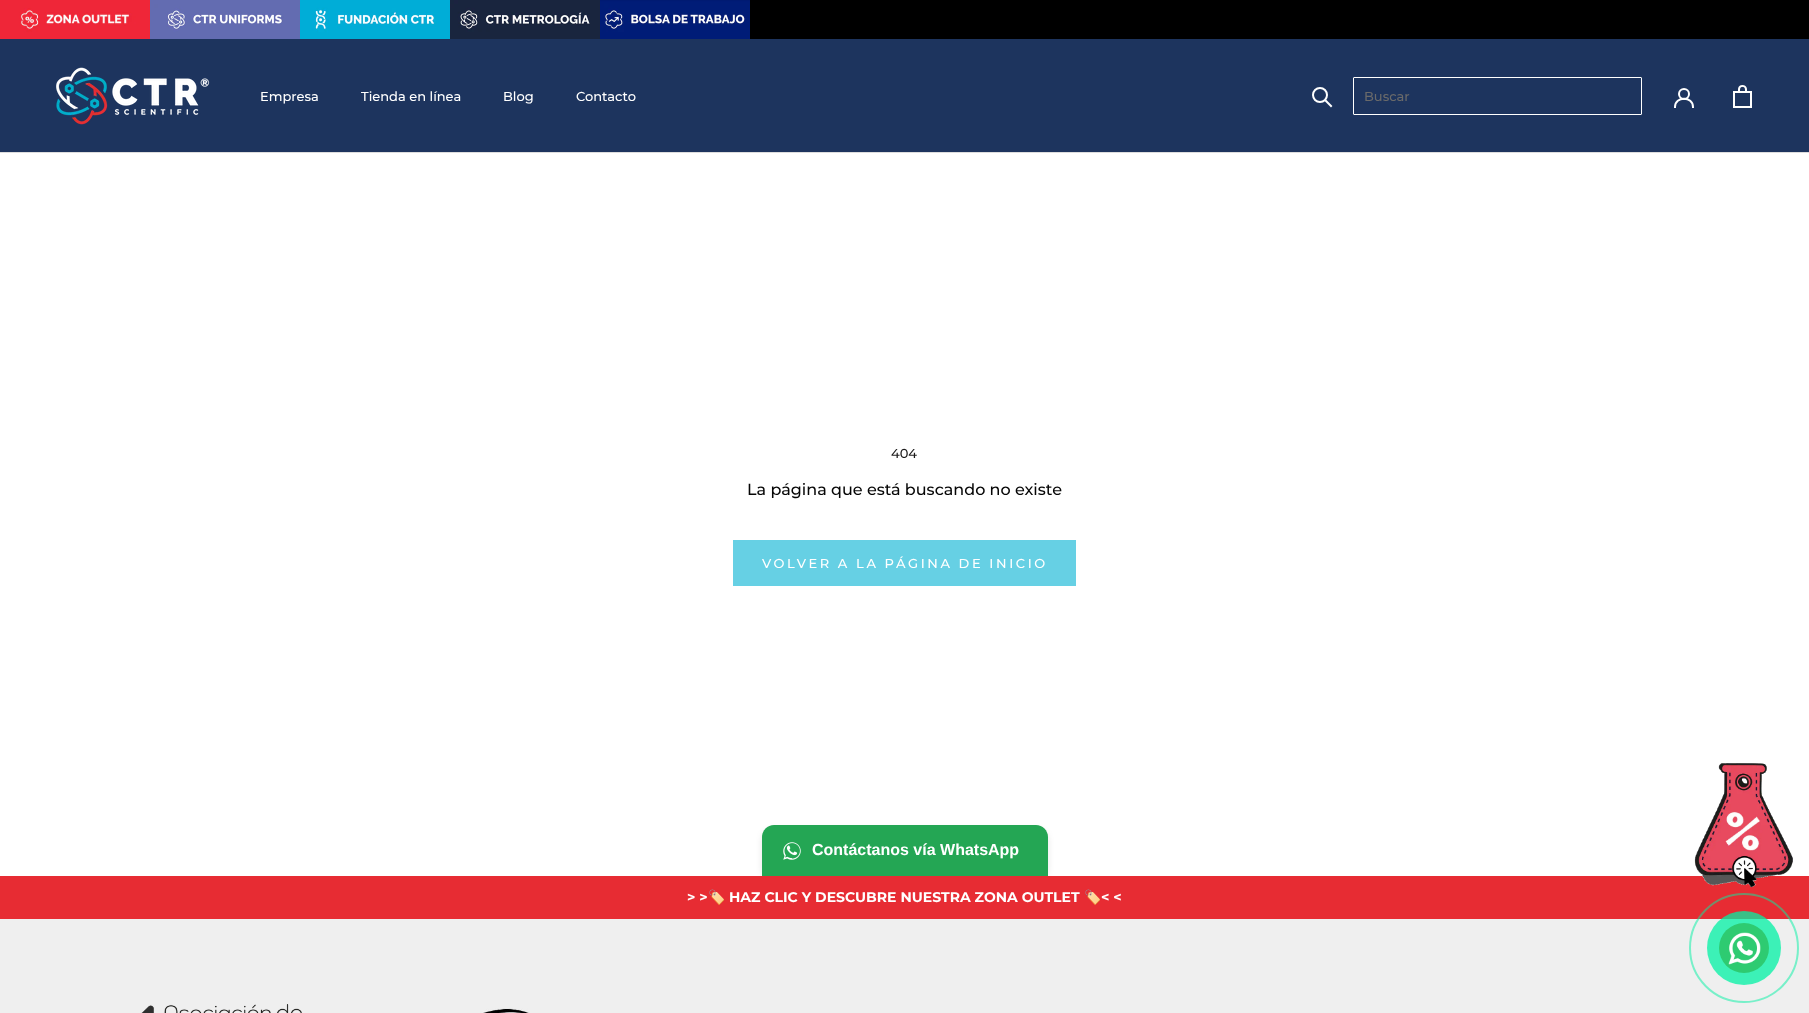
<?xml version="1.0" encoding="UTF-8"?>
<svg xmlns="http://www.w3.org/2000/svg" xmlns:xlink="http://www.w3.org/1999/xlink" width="1809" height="1013">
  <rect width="100%" height="100%" fill="#ffffff" />
  <rect x="600" width="1209" height="39" fill="#000000" />
  <image x="0" y="0" width="150" height="39" xlink:href="image1.png" />
  <image x="150" y="0" width="150" height="39" xlink:href="image2.png" />
  <image x="300" y="0" width="150" height="39" xlink:href="image3.png" />
  <image x="450" y="0" width="150" height="39" xlink:href="image4.png" />
  <image x="600" y="0" width="150" height="39" xlink:href="image5.png" />
  <rect y="39" width="1809" height="113" fill="#1d345e" />
  <rect y="152" width="1809" height="1" fill="#dddddd" />
  <image x="56" y="67" width="154" height="58" xlink:href="image6.png" />
  <path d="M 1331 106 l -5.5 -5.5" fill="none" stroke="#ffffff" stroke-width="2" stroke-linecap="square" />
  <circle cx="1320" cy="95" r="7" fill="none" stroke="#ffffff" stroke-width="2" />
  <rect x="1353.5" y="77.5" width="288" height="37" rx="0.5" fill="none" stroke="#ffffff" />
  <path d="M 1675 107 c 0 -11 18 -11 18 0" fill="none" stroke="#ffffff" stroke-width="2" stroke-linecap="square" />
  <circle cx="1684" cy="94" r="5" fill="none" stroke="#ffffff" stroke-width="2" />
  <image x="1733" y="85" width="19" height="23" xlink:href="image7.png" />
  <rect x="733.5" y="540.5" width="342" height="45" fill="none" stroke="#66d0e4" />
  <rect x="734" y="541" width="341" height="44" fill="#66d0e4" />
  <rect x="762" y="829" width="286" height="51" rx="12" fill="#000000" fill-opacity="0.1" filter="blur(3px)" />
  <path d="M 774 825 h 262 c 6.5 0 12 5.5 12 12 v 39 h -286 v -39 c 0 -6.5 5.5 -12 12 -12 z" fill="#24a654" />
  <image x="783" y="842" width="18" height="18" xlink:href="image8.png" />
  <rect y="876" width="1809" height="43" fill="#e72c33" />
  <rect y="919" width="1809" height="94" fill="#efefef" />
  <image x="141" y="1004" width="161" height="9" xlink:href="image9.png" />
  <image x="483" y="1008" width="46" height="5" xlink:href="image10.png" />
  <image x="1694" y="763" width="99" height="125" xlink:href="image11.png" />
  <image x="1694" y="763" width="99" height="125" xlink:href="image12.png" />
  <circle cx="1744" cy="948" r="54" fill="none" stroke="#00f2a4" stroke-opacity="0.5" stroke-width="2" />
  <circle cx="1744" cy="948" r="37" fill="#00f2a4" fill-opacity="0.75" />
  <circle cx="1744" cy="948" r="25" fill="#2ecb71" />
  <image x="1728" y="932" width="33" height="33" xlink:href="image13.png" />
  <text x="260" y="101" style="font-family: Montserrat; font-size: 13px; font-weight: 500; fill: #ffffff">Empresa</text>
  <text x="361" y="101" style="font-family: Montserrat; font-size: 13px; font-weight: 500; fill: #ffffff">Tienda en línea</text>
  <text x="503" y="101" style="font-family: Montserrat; font-size: 13px; font-weight: 500; fill: #ffffff">Blog</text>
  <text x="576" y="101" style="font-family: Montserrat; font-size: 13px; font-weight: 500; fill: #ffffff">Contacto</text>
  <text x="1364" y="101" style="font-family: Montserrat; font-size: 13px; font-weight: 500; fill: #6a6a6a">Buscar</text>
  <text x="891" y="458" style="font-family: Montserrat; font-size: 13px; font-weight: 500; fill: #1c1b1b">404</text>
  <text x="747" y="495" style="font-family: Montserrat; font-size: 16px; font-weight: 500; fill: #060606">La página que está buscando no existe</text>
  <text x="762" y="568" style="font-family: Montserrat; font-size: 13px; font-weight: 500; letter-spacing: 2.6px; fill: #ffffff">VOLVER A LA PÁGINA DE INICIO</text>
  <text x="812" y="855" style="font-family: Liberation Sans; font-size: 16px; font-weight: bold; fill: #ffffff">Contáctanos vía WhatsApp</text>
  <text x="687" y="902" style="font-family: Montserrat; font-size: 14px; font-weight: bold; fill: #ffffff">&gt; &gt;</text>
  <text x="708" y="902" style="font-family: Noto Color Emoji; font-size: 14px; font-weight: bold; fill: #ffffff">🏷️</text>
  <text x="729" y="902" style="font-family: Montserrat; font-size: 14px; font-weight: bold; fill: #ffffff">HAZ CLIC Y DESCUBRE NUESTRA ZONA OUTLET</text>
  <text x="1084" y="902" style="font-family: Noto Color Emoji; font-size: 14px; font-weight: bold; fill: #ffffff">🏷️</text>
  <text x="1101" y="902" style="font-family: Montserrat; font-size: 14px; font-weight: bold; fill: #ffffff">&lt; &lt;</text>
</svg>
